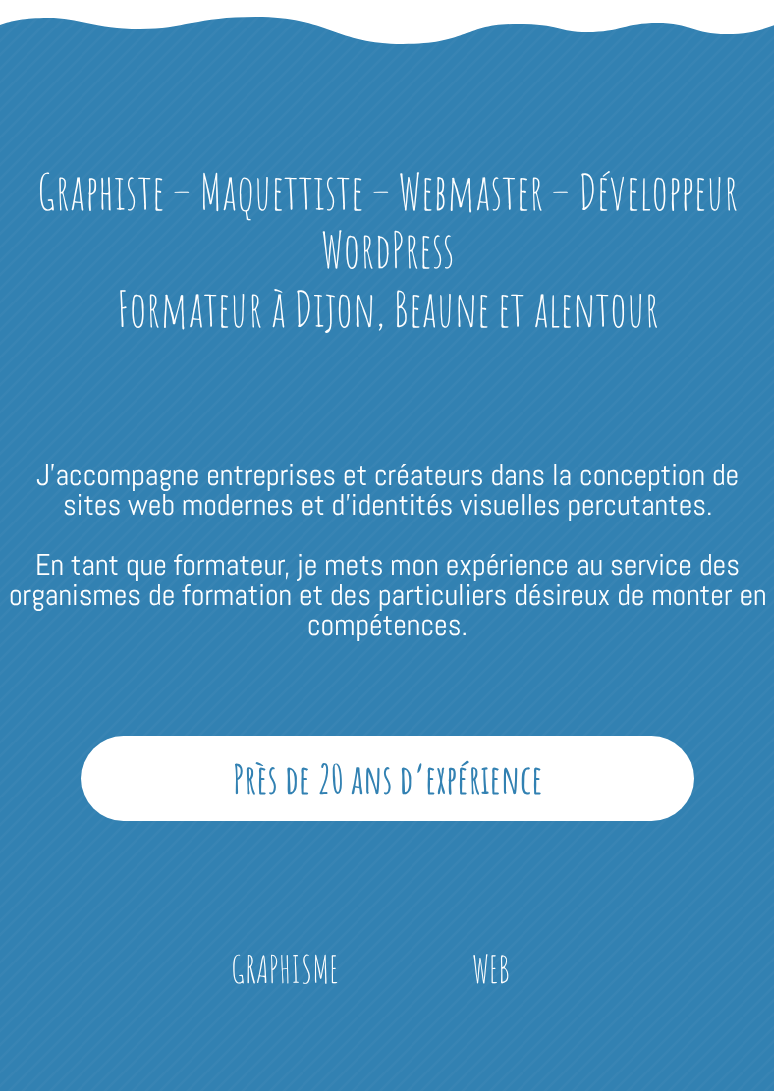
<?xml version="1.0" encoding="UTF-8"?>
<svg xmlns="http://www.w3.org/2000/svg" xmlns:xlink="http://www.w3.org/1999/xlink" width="774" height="1091">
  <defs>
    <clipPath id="clip1"><rect y="14" width="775" height="31" /></clipPath>
  </defs>
  <rect width="100%" height="100%" fill="#ffffff" />
  <rect y="17" width="774" height="1074" fill="#3281b2" />
  <image x="0" y="17" width="774" height="1074" xlink:href="image1.png" />
  <g clip-path="url(#clip1)">
    <path d="M 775 25 c -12 4 -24 9 -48 9 c -35 0 -35 -11 -70 -11 c -32 0 -36 9 -70 9 c -28 0 -27 -8 -70 -8 c -54 0 -48 20 -114 20 c -68 0 -74 -27 -147 -27 c -61 0 -71 12 -116 12 c -46 0 -60 -11 -92 -11 c -24 0 -36 3 -48 7 v -12 h 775 z" fill="#ffffff" />
  </g>
  <rect x="81" y="736" width="613" height="85" rx="42.5" fill="#ffffff" />
  <text x="37" y="210" style="font-family: Amatic SC; font-size: 48.75px; fill: #ffffff">Graphiste – Maquettiste – Webmaster – Développeur</text>
  <text x="321" y="268" style="font-family: Amatic SC; font-size: 48.75px; fill: #ffffff">WordPress</text>
  <text x="117" y="327" style="font-family: Amatic SC; font-size: 48.75px; fill: #ffffff">Formateur à Dijon, Beaune et alentour</text>
  <text x="36" y="485" style="font-family: Abel; font-size: 30px; fill: #ffffff">J’accompagne entreprises et créateurs dans la conception de</text>
  <text x="63" y="515" style="font-family: Abel; font-size: 30px; fill: #ffffff">sites web modernes et d’identités visuelles percutantes.</text>
  <text x="35" y="575" style="font-family: Abel; font-size: 30px; fill: #ffffff">En tant que formateur, je mets mon expérience au service des</text>
  <text x="9" y="605" style="font-family: Abel; font-size: 30px; fill: #ffffff">organismes de formation et des particuliers désireux de monter en</text>
  <text x="307" y="635" style="font-family: Abel; font-size: 30px; fill: #ffffff">compétences.</text>
  <text x="233" y="794" style="font-family: Amatic SC; font-size: 40px; font-weight: bold; fill: #3281b2">Près de 20 ans d’expérience</text>
  <text x="231" y="983" style="font-family: Amatic SC; font-size: 37px; fill: #ffffff">GRAPHISME</text>
  <text x="472" y="983" style="font-family: Amatic SC; font-size: 37px; fill: #ffffff">WEB</text>
</svg>
